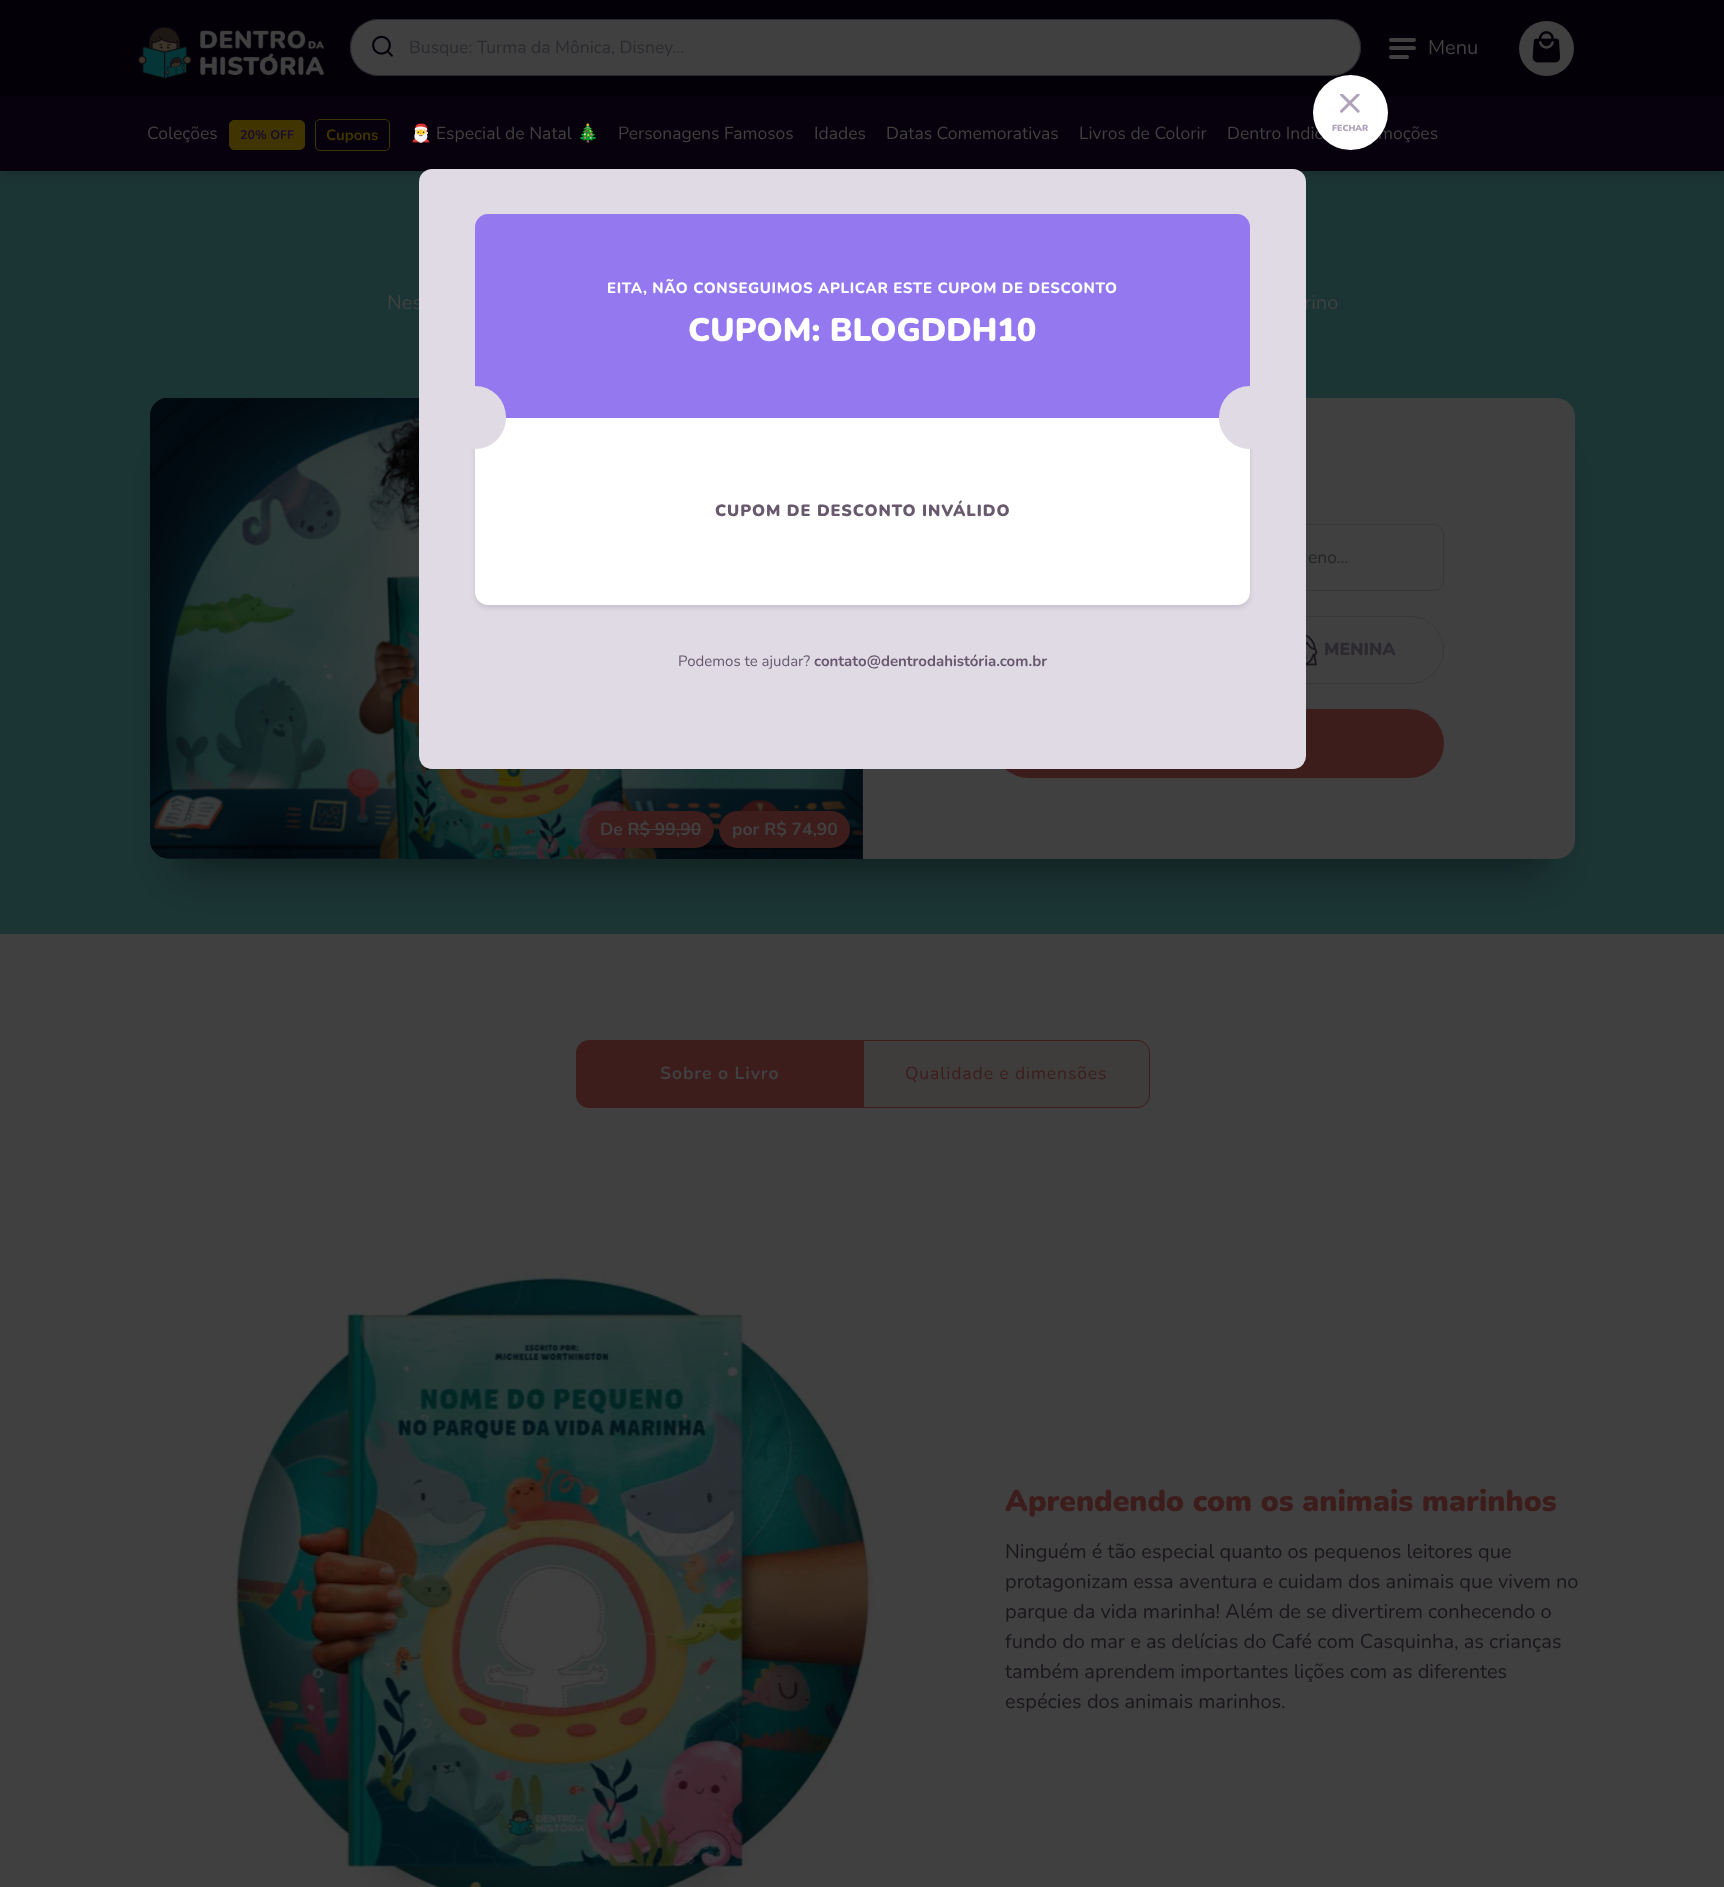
<?xml version="1.0" encoding="UTF-8"?>
<svg xmlns="http://www.w3.org/2000/svg" xmlns:xlink="http://www.w3.org/1999/xlink" width="1724" height="1887">
  <rect width="100%" height="100%" fill="#404040" />
  <rect width="1724" height="95" fill="#040008" />
  <image x="138" y="27" width="187" height="52" xlink:href="image1.png" />
  <rect x="350" y="19" width="1011" height="57" rx="28.5" fill="#404040" />
  <rect x="350.5" y="19.5" width="1010" height="56" rx="28" fill="none" stroke="#202029" stroke-opacity="0.8" />
  <image x="372" y="35" width="21" height="22" xlink:href="image2.png" />
  <rect x="1389" y="38" width="27" height="4" rx="2" fill="#404040" />
  <rect x="1389" y="46" width="27" height="4" rx="2" fill="#404040" />
  <rect x="1389" y="55" width="20" height="4" rx="2" fill="#404040" />
  <circle cx="1546.5" cy="48.5" r="27.5" fill="#404040" />
  <image x="1532" y="31" width="29" height="32" xlink:href="image3.png" />
  <rect y="171" width="1724" height="763" fill="#1b3534" />
  <rect y="98" width="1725" height="76" fill="#1a161c" fill-opacity="0.24" filter="blur(5px)" />
  <rect y="96" width="1724" height="75" fill="#07010e" />
  <rect y="95" width="1724" height="1" fill="#040008" />
  <rect x="229.5" y="120.5" width="75" height="29" rx="4.5" fill="#403400" stroke="#403400" />
  <rect x="315.5" y="119.5" width="74" height="31" rx="4.5" fill="none" stroke="#403400" />
  <rect x="175" y="460" width="1375" height="411" rx="19" fill="#000000" fill-opacity="0.4" filter="blur(19px)" />
  <path d="M 169 398 h 1362 c 24.5 0 44 19.5 44 44 v 373 c 0 24.5 -19.5 44 -44 44 h -1362 c -10.5 0 -19 -8.5 -19 -19 v -423 c 0 -10.5 8.5 -19 19 -19 z" fill="#404040" />
  <path d="M 863 398 h 693 c 10.5 0 19 8.5 19 19 v 423 c 0 10.5 -8.5 19 -19 19 h -693 z" fill="#404040" />
  <rect x="994.5" y="524.5" width="449" height="66" rx="9.5" fill="none" stroke="#383739" />
  <rect x="1231.5" y="616.5" width="212" height="67" rx="33.5" fill="none" stroke="#383739" />
  <image x="1306" y="634" width="12" height="32" xlink:href="image4.png" />
  <rect x="994" y="709" width="450" height="69" rx="34.5" fill="#3d1d1b" />
  <image x="150" y="398" width="713" height="461" xlink:href="image5.png" />
  <image x="150" y="398" width="713" height="461" xlink:href="image6.png" />
  <rect x="588" y="813" width="40" height="36" rx="18" fill="#000000" fill-opacity="0.2" filter="blur(1px)" />
  <path d="M 606.5 811 h 21.5 v 37 h -21.5 c -10 0 -18.5 -8.5 -18.5 -18.5 c 0 -10 8.5 -18.5 18.5 -18.5 z" fill="#3d1d1b" />
  <rect x="628" y="813" width="86" height="36" rx="18" fill="#000000" fill-opacity="0.2" filter="blur(1px)" />
  <path d="M 628 811 h 67.5 c 10 0 18.5 8.5 18.5 18.5 c 0 10 -8.5 18.5 -18.5 18.5 h -67.5 z" fill="#3d1d1b" />
  <rect x="628" y="829" width="73" height="1" fill="#404040" />
  <rect x="719" y="811" width="131" height="37" rx="18.5" fill="#3d1d1b" />
  <path d="M 589 1040.5 h 274.5 v 67 h -274.5 c -7 0 -12.5 -5.5 -12.5 -12.5 v -42 c 0 -7 5.5 -12.5 12.5 -12.5 z" fill="#3d1d1b" stroke="#3d1d1b" />
  <path d="M 863.5 1040.5 h 273.5 c 7 0 12.5 5.5 12.5 12.5 v 42 c 0 7 -5.5 12.5 -12.5 12.5 h -273.5 z" fill="#3d1d1b" fill-opacity="0.1" stroke="#3d1d1b" />
  <image x="230" y="1273" width="644" height="614" xlink:href="image7.png" />
  <text x="409" y="53" style="font-family: Nunito; font-size: 17.5px; fill: #2c292f">Busque: Turma da Mônica, Disney...</text>
  <text x="1428" y="54" style="font-family: Nunito; font-size: 20px; fill: #404040">Menu</text>
  <text x="147" y="139" style="font-family: Nunito; font-size: 17.5px; fill: #404040">Coleções</text>
  <text x="240" y="139" style="font-family: Nunito; font-size: 12.5px; font-weight: bold; fill: #1d0d2c">20% OFF</text>
  <text x="326" y="140" style="font-family: Nunito; font-size: 15px; font-weight: bold; fill: #403400">Cupons</text>
  <text x="410" y="139" style="font-family: Noto Color Emoji; font-size: 17.5px; fill: #404040">🎅</text>
  <text x="436" y="139" style="font-family: Nunito; font-size: 17.5px; fill: #404040">Especial de Natal</text>
  <text x="577" y="139" style="font-family: Noto Color Emoji; font-size: 17.5px; fill: #404040">🎄</text>
  <text x="618" y="139" style="font-family: Nunito; font-size: 17.5px; fill: #404040">Personagens Famosos</text>
  <text x="814" y="139" style="font-family: Nunito; font-size: 17.5px; fill: #404040">Idades</text>
  <text x="886" y="139" style="font-family: Nunito; font-size: 17.5px; fill: #404040">Datas Comemorativas</text>
  <text x="1079" y="139" style="font-family: Nunito; font-size: 17.5px; fill: #404040">Livros de Colorir</text>
  <text x="1227" y="139" style="font-family: Nunito; font-size: 17.5px; fill: #404040">Dentro Indic</text>
  <text x="1378" y="139" style="font-family: Nunito; font-size: 17.5px; fill: #404040">moções</text>
  <text x="387" y="309" style="font-family: Nunito; font-size: 20px; fill: #404040">Nes</text>
  <text x="1304" y="309" style="font-family: Nunito; font-size: 20px; fill: #404040">rino</text>
  <text x="1308" y="563" style="font-family: Nunito; font-size: 17.5px; fill: #222426">eno...</text>
  <text x="1324" y="655" style="font-family: Nunito; font-size: 17.5px; font-weight: 900; fill: #2c292f">MENINA</text>
  <text x="600" y="835" style="font-family: Nunito; font-size: 17.5px; font-weight: bold; fill: #404040">De R$ 99,90</text>
  <text x="732" y="835" style="font-family: Nunito; font-size: 17.5px; font-weight: bold; fill: #404040">por R$ 74,90</text>
  <text x="660" y="1079" style="font-family: Nunito; font-size: 17.5px; font-weight: bold; letter-spacing: 0.9px; fill: #404040">Sobre o Livro</text>
  <text x="905" y="1079" style="font-family: Nunito; font-size: 17.5px; letter-spacing: 0.9px; fill: #3d1d1b">Qualidade e dimensões</text>
  <text x="1005" y="1511" style="font-family: Nunito; font-size: 30px; font-weight: 900; fill: #3d1d1b">Aprendendo com os animais marinhos</text>
  <text x="1005" y="1558" style="font-family: Nunito; font-size: 20px; fill: #1a161c">Ninguém é tão especial quanto os pequenos leitores que</text>
  <text x="1005" y="1588" style="font-family: Nunito; font-size: 20px; fill: #1a161c">protagonizam essa aventura e cuidam dos animais que vivem no</text>
  <text x="1005" y="1618" style="font-family: Nunito; font-size: 20px; fill: #1a161c">parque da vida marinha! Além de se divertirem conhecendo o</text>
  <text x="1005" y="1648" style="font-family: Nunito; font-size: 20px; fill: #1a161c">fundo do mar e as delícias do Café com Casquinha, as crianças</text>
  <text x="1005" y="1678" style="font-family: Nunito; font-size: 20px; fill: #1a161c">também aprendem importantes lições com as diferentes</text>
  <text x="1005" y="1708" style="font-family: Nunito; font-size: 20px; fill: #1a161c">espécies dos animais marinhos.</text>
  <circle cx="1350.5" cy="112.5" r="37.5" fill="#ffffff" />
  <image x="1340" y="94" width="20" height="19" xlink:href="image8.png" />
  <text x="1332" y="131" style="font-family: Nunito; font-size: 8.75px; font-weight: 900; fill: #afa2ba">FECHAR</text>
  <rect x="419" y="169" width="887" height="600" rx="13" fill="#dfdae4" />
  <rect x="475" y="420" width="775" height="188" rx="13" fill="#000000" fill-opacity="0.1" filter="blur(2.5px)" />
  <path d="M 488 214 h 749 c 7 0 13 6 13 13 v 191 h -775 v -191 c 0 -7 6 -13 13 -13 z" fill="#9378f0" />
  <text x="688" y="341" style="font-family: Nunito; font-size: 32.5px; font-weight: 900; fill: #ffffff">CUPOM: BLOGDDH10</text>
  <text x="607" y="293" style="font-family: Nunito; font-size: 15px; font-weight: 800; letter-spacing: 0.62px; fill: #ffffff">EITA, NÃO CONSEGUIMOS APLICAR ESTE CUPOM DE DESCONTO</text>
  <path d="M 475 418 h 775 v 174 c 0 7 -6 13 -13 13 h -749 c -7 0 -13 -6 -13 -13 z" fill="#ffffff" />
  <rect x="1219" y="386" width="62" height="63" rx="31" fill="#dfdae4" />
  <rect x="444" y="386" width="62" height="63" rx="31" fill="#dfdae4" />
  <text x="715" y="516" style="font-family: Nunito; font-size: 16.25px; font-weight: 900; letter-spacing: 0.9px; fill: #68596e">CUPOM DE DESCONTO INVÁLIDO</text>
  <text x="678" y="666" style="font-family: Nunito; font-size: 15px; fill: #68596e">Podemos te ajudar?</text>
  <text x="814" y="666" style="font-family: Nunito; font-size: 15px; font-weight: bold; fill: #68596e">contato@dentrodahistória.com.br</text>
</svg>
